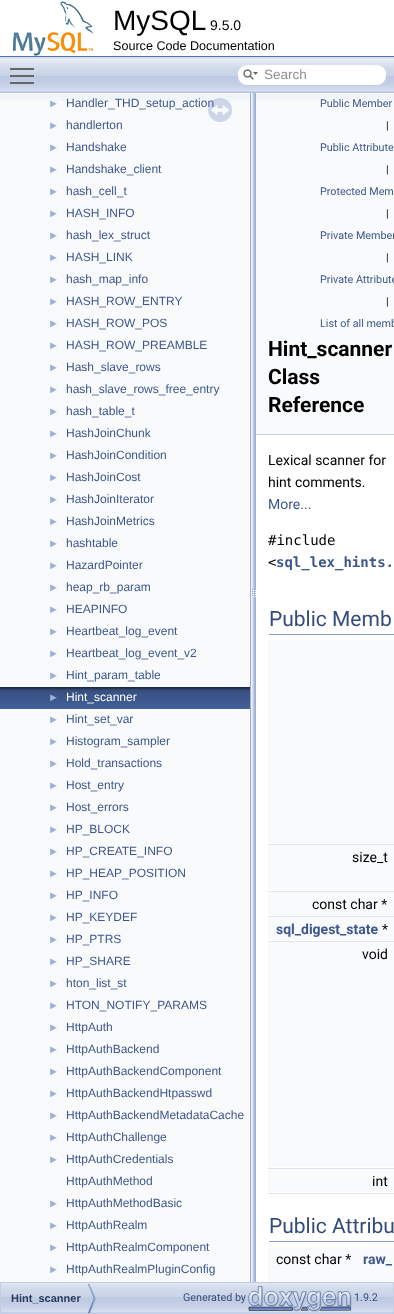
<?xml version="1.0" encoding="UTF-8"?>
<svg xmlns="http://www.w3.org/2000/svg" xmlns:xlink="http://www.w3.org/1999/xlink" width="394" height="1314">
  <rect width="100%" height="100%" fill="#ffffff" />
  <rect y="56" width="394" height="1" fill="#5373b4" />
  <image x="13" y="1" width="80" height="55" xlink:href="image1.png" />
  <image x="0" y="57" width="394" height="36" xlink:href="image2.png" />
  <rect x="10" y="75" width="24" height="2" fill="#666666" />
  <rect x="10" y="68" width="24" height="2" fill="#666666" />
  <rect x="10" y="82" width="24" height="2" fill="#666666" />
  <rect x="238" y="65" width="148" height="20" rx="9" fill="#ffffff" />
  <image x="243" y="69" width="15" height="11" xlink:href="image3.png" />
  <rect y="101" width="250" height="1181" fill="#f9fafc" />
  <image x="0" y="93" width="250" height="8" xlink:href="image4.png" />
  <image x="0" y="687" width="250" height="22" xlink:href="image5.png" />
  <image x="250" y="93" width="6" height="1189" xlink:href="image7.png" />
  <rect x="256" y="101" width="138" height="333" fill="#f9fafc" />
  <image x="256" y="93" width="138" height="8" xlink:href="image8.png" />
  <rect x="256" y="434" width="138" height="1" fill="#c4cfe5" />
  <rect x="269" y="634" width="125" height="1" fill="#879ecb" />
  <rect x="268" y="640" width="126" height="155" fill="#f9fafc" />
  <rect x="268" y="795" width="126" height="48" fill="#f9fafc" />
  <rect x="268" y="844" width="126" height="1" fill="#dee4f0" />
  <rect x="268" y="845" width="126" height="45" fill="#f9fafc" />
  <rect x="268" y="891" width="126" height="1" fill="#dee4f0" />
  <rect x="268" y="892" width="126" height="23" fill="#f9fafc" />
  <rect x="268" y="916" width="126" height="1" fill="#dee4f0" />
  <rect x="268" y="917" width="126" height="23" fill="#f9fafc" />
  <rect x="268" y="941" width="126" height="1" fill="#dee4f0" />
  <rect x="268" y="942" width="126" height="67" fill="#f9fafc" />
  <rect x="268" y="1009" width="126" height="158" fill="#f9fafc" />
  <rect x="268" y="1168" width="126" height="1" fill="#dee4f0" />
  <rect x="268" y="1169" width="126" height="23" fill="#f9fafc" />
  <rect x="268" y="1193" width="126" height="1" fill="#dee4f0" />
  <rect x="269" y="1241" width="125" height="1" fill="#879ecb" />
  <rect x="268" y="1247" width="126" height="23" fill="#f9fafc" />
  <rect x="268" y="1270" width="126" height="12" fill="#f9fafc" />
  <image x="1" y="1283" width="392" height="30" xlink:href="image9.png" />
  <rect x="0.5" y="1282.5" width="393" height="31" fill="none" stroke="#c2cde4" />
  <image x="88" y="1284" width="8" height="29" xlink:href="image10.png" />
  <image x="248" y="1286" width="104" height="26" xlink:href="image11.png" />
  <text x="113" y="30" style="font-family: Liberation Sans; font-size: 28px; fill: #000000">MySQL</text>
  <text x="210" y="30" style="font-family: Liberation Sans; font-size: 14px; fill: #000000">9.5.0</text>
  <text x="113" y="50" style="font-family: Liberation Sans; font-size: 12.6px; fill: #000000">Source Code Documentation</text>
  <text x="264" y="79" style="font-family: Liberation Sans; font-size: 13.5px; fill: #909090">Search</text>
  <text x="48" y="107" style="font-family: Liberation Sans; font-size: 11px; fill: #9cafd4">►</text>
  <text x="66" y="107" style="font-family: Liberation Sans; font-size: 12px; fill: #3d578c">Handler_THD_setup_action</text>
  <text x="48" y="129" style="font-family: Liberation Sans; font-size: 11px; fill: #9cafd4">►</text>
  <text x="66" y="129" style="font-family: Liberation Sans; font-size: 12px; fill: #3d578c">handlerton</text>
  <text x="48" y="151" style="font-family: Liberation Sans; font-size: 11px; fill: #9cafd4">►</text>
  <text x="66" y="151" style="font-family: Liberation Sans; font-size: 12px; fill: #3d578c">Handshake</text>
  <text x="48" y="173" style="font-family: Liberation Sans; font-size: 11px; fill: #9cafd4">►</text>
  <text x="66" y="173" style="font-family: Liberation Sans; font-size: 12px; fill: #3d578c">Handshake_client</text>
  <text x="48" y="195" style="font-family: Liberation Sans; font-size: 11px; fill: #9cafd4">►</text>
  <text x="66" y="195" style="font-family: Liberation Sans; font-size: 12px; fill: #3d578c">hash_cell_t</text>
  <text x="48" y="217" style="font-family: Liberation Sans; font-size: 11px; fill: #9cafd4">►</text>
  <text x="66" y="217" style="font-family: Liberation Sans; font-size: 12px; fill: #3d578c">HASH_INFO</text>
  <text x="48" y="239" style="font-family: Liberation Sans; font-size: 11px; fill: #9cafd4">►</text>
  <text x="66" y="239" style="font-family: Liberation Sans; font-size: 12px; fill: #3d578c">hash_lex_struct</text>
  <text x="48" y="261" style="font-family: Liberation Sans; font-size: 11px; fill: #9cafd4">►</text>
  <text x="66" y="261" style="font-family: Liberation Sans; font-size: 12px; fill: #3d578c">HASH_LINK</text>
  <text x="48" y="283" style="font-family: Liberation Sans; font-size: 11px; fill: #9cafd4">►</text>
  <text x="66" y="283" style="font-family: Liberation Sans; font-size: 12px; fill: #3d578c">hash_map_info</text>
  <text x="48" y="305" style="font-family: Liberation Sans; font-size: 11px; fill: #9cafd4">►</text>
  <text x="66" y="305" style="font-family: Liberation Sans; font-size: 12px; fill: #3d578c">HASH_ROW_ENTRY</text>
  <text x="48" y="327" style="font-family: Liberation Sans; font-size: 11px; fill: #9cafd4">►</text>
  <text x="66" y="327" style="font-family: Liberation Sans; font-size: 12px; fill: #3d578c">HASH_ROW_POS</text>
  <text x="48" y="349" style="font-family: Liberation Sans; font-size: 11px; fill: #9cafd4">►</text>
  <text x="66" y="349" style="font-family: Liberation Sans; font-size: 12px; fill: #3d578c">HASH_ROW_PREAMBLE</text>
  <text x="48" y="371" style="font-family: Liberation Sans; font-size: 11px; fill: #9cafd4">►</text>
  <text x="66" y="371" style="font-family: Liberation Sans; font-size: 12px; fill: #3d578c">Hash_slave_rows</text>
  <text x="48" y="393" style="font-family: Liberation Sans; font-size: 11px; fill: #9cafd4">►</text>
  <text x="66" y="393" style="font-family: Liberation Sans; font-size: 12px; fill: #3d578c">hash_slave_rows_free_entry</text>
  <text x="48" y="415" style="font-family: Liberation Sans; font-size: 11px; fill: #9cafd4">►</text>
  <text x="66" y="415" style="font-family: Liberation Sans; font-size: 12px; fill: #3d578c">hash_table_t</text>
  <text x="48" y="437" style="font-family: Liberation Sans; font-size: 11px; fill: #9cafd4">►</text>
  <text x="66" y="437" style="font-family: Liberation Sans; font-size: 12px; fill: #3d578c">HashJoinChunk</text>
  <text x="48" y="459" style="font-family: Liberation Sans; font-size: 11px; fill: #9cafd4">►</text>
  <text x="66" y="459" style="font-family: Liberation Sans; font-size: 12px; fill: #3d578c">HashJoinCondition</text>
  <text x="48" y="481" style="font-family: Liberation Sans; font-size: 11px; fill: #9cafd4">►</text>
  <text x="66" y="481" style="font-family: Liberation Sans; font-size: 12px; fill: #3d578c">HashJoinCost</text>
  <text x="48" y="503" style="font-family: Liberation Sans; font-size: 11px; fill: #9cafd4">►</text>
  <text x="66" y="503" style="font-family: Liberation Sans; font-size: 12px; fill: #3d578c">HashJoinIterator</text>
  <text x="48" y="525" style="font-family: Liberation Sans; font-size: 11px; fill: #9cafd4">►</text>
  <text x="66" y="525" style="font-family: Liberation Sans; font-size: 12px; fill: #3d578c">HashJoinMetrics</text>
  <text x="48" y="547" style="font-family: Liberation Sans; font-size: 11px; fill: #9cafd4">►</text>
  <text x="66" y="547" style="font-family: Liberation Sans; font-size: 12px; fill: #3d578c">hashtable</text>
  <text x="48" y="569" style="font-family: Liberation Sans; font-size: 11px; fill: #9cafd4">►</text>
  <text x="66" y="569" style="font-family: Liberation Sans; font-size: 12px; fill: #3d578c">HazardPointer</text>
  <text x="48" y="591" style="font-family: Liberation Sans; font-size: 11px; fill: #9cafd4">►</text>
  <text x="66" y="591" style="font-family: Liberation Sans; font-size: 12px; fill: #3d578c">heap_rb_param</text>
  <text x="48" y="613" style="font-family: Liberation Sans; font-size: 11px; fill: #9cafd4">►</text>
  <text x="66" y="613" style="font-family: Liberation Sans; font-size: 12px; fill: #3d578c">HEAPINFO</text>
  <text x="48" y="635" style="font-family: Liberation Sans; font-size: 11px; fill: #9cafd4">►</text>
  <text x="66" y="635" style="font-family: Liberation Sans; font-size: 12px; fill: #3d578c">Heartbeat_log_event</text>
  <text x="48" y="657" style="font-family: Liberation Sans; font-size: 11px; fill: #9cafd4">►</text>
  <text x="66" y="657" style="font-family: Liberation Sans; font-size: 12px; fill: #3d578c">Heartbeat_log_event_v2</text>
  <text x="48" y="679" style="font-family: Liberation Sans; font-size: 11px; fill: #9cafd4">►</text>
  <text x="66" y="679" style="font-family: Liberation Sans; font-size: 12px; fill: #3d578c">Hint_param_table</text>
  <text x="48" y="701" style="font-family: Liberation Sans; font-size: 11px; fill: #9cafd4">►</text>
  <text x="66" y="701" style="font-family: Liberation Sans; font-size: 12px; fill: #ffffff">Hint_scanner</text>
  <text x="48" y="723" style="font-family: Liberation Sans; font-size: 11px; fill: #9cafd4">►</text>
  <text x="66" y="723" style="font-family: Liberation Sans; font-size: 12px; fill: #3d578c">Hint_set_var</text>
  <text x="48" y="745" style="font-family: Liberation Sans; font-size: 11px; fill: #9cafd4">►</text>
  <text x="66" y="745" style="font-family: Liberation Sans; font-size: 12px; fill: #3d578c">Histogram_sampler</text>
  <text x="48" y="767" style="font-family: Liberation Sans; font-size: 11px; fill: #9cafd4">►</text>
  <text x="66" y="767" style="font-family: Liberation Sans; font-size: 12px; fill: #3d578c">Hold_transactions</text>
  <text x="48" y="789" style="font-family: Liberation Sans; font-size: 11px; fill: #9cafd4">►</text>
  <text x="66" y="789" style="font-family: Liberation Sans; font-size: 12px; fill: #3d578c">Host_entry</text>
  <text x="48" y="811" style="font-family: Liberation Sans; font-size: 11px; fill: #9cafd4">►</text>
  <text x="66" y="811" style="font-family: Liberation Sans; font-size: 12px; fill: #3d578c">Host_errors</text>
  <text x="48" y="833" style="font-family: Liberation Sans; font-size: 11px; fill: #9cafd4">►</text>
  <text x="66" y="833" style="font-family: Liberation Sans; font-size: 12px; fill: #3d578c">HP_BLOCK</text>
  <text x="48" y="855" style="font-family: Liberation Sans; font-size: 11px; fill: #9cafd4">►</text>
  <text x="66" y="855" style="font-family: Liberation Sans; font-size: 12px; fill: #3d578c">HP_CREATE_INFO</text>
  <text x="48" y="877" style="font-family: Liberation Sans; font-size: 11px; fill: #9cafd4">►</text>
  <text x="66" y="877" style="font-family: Liberation Sans; font-size: 12px; fill: #3d578c">HP_HEAP_POSITION</text>
  <text x="48" y="899" style="font-family: Liberation Sans; font-size: 11px; fill: #9cafd4">►</text>
  <text x="66" y="899" style="font-family: Liberation Sans; font-size: 12px; fill: #3d578c">HP_INFO</text>
  <text x="48" y="921" style="font-family: Liberation Sans; font-size: 11px; fill: #9cafd4">►</text>
  <text x="66" y="921" style="font-family: Liberation Sans; font-size: 12px; fill: #3d578c">HP_KEYDEF</text>
  <text x="48" y="943" style="font-family: Liberation Sans; font-size: 11px; fill: #9cafd4">►</text>
  <text x="66" y="943" style="font-family: Liberation Sans; font-size: 12px; fill: #3d578c">HP_PTRS</text>
  <text x="48" y="965" style="font-family: Liberation Sans; font-size: 11px; fill: #9cafd4">►</text>
  <text x="66" y="965" style="font-family: Liberation Sans; font-size: 12px; fill: #3d578c">HP_SHARE</text>
  <text x="48" y="987" style="font-family: Liberation Sans; font-size: 11px; fill: #9cafd4">►</text>
  <text x="66" y="987" style="font-family: Liberation Sans; font-size: 12px; fill: #3d578c">hton_list_st</text>
  <text x="48" y="1009" style="font-family: Liberation Sans; font-size: 11px; fill: #9cafd4">►</text>
  <text x="66" y="1009" style="font-family: Liberation Sans; font-size: 12px; fill: #3d578c">HTON_NOTIFY_PARAMS</text>
  <text x="48" y="1031" style="font-family: Liberation Sans; font-size: 11px; fill: #9cafd4">►</text>
  <text x="66" y="1031" style="font-family: Liberation Sans; font-size: 12px; fill: #3d578c">HttpAuth</text>
  <text x="48" y="1053" style="font-family: Liberation Sans; font-size: 11px; fill: #9cafd4">►</text>
  <text x="66" y="1053" style="font-family: Liberation Sans; font-size: 12px; fill: #3d578c">HttpAuthBackend</text>
  <text x="48" y="1075" style="font-family: Liberation Sans; font-size: 11px; fill: #9cafd4">►</text>
  <text x="66" y="1075" style="font-family: Liberation Sans; font-size: 12px; fill: #3d578c">HttpAuthBackendComponent</text>
  <text x="48" y="1097" style="font-family: Liberation Sans; font-size: 11px; fill: #9cafd4">►</text>
  <text x="66" y="1097" style="font-family: Liberation Sans; font-size: 12px; fill: #3d578c">HttpAuthBackendHtpasswd</text>
  <text x="48" y="1119" style="font-family: Liberation Sans; font-size: 11px; fill: #9cafd4">►</text>
  <text x="66" y="1119" style="font-family: Liberation Sans; font-size: 12px; fill: #3d578c">HttpAuthBackendMetadataCache</text>
  <text x="48" y="1141" style="font-family: Liberation Sans; font-size: 11px; fill: #9cafd4">►</text>
  <text x="66" y="1141" style="font-family: Liberation Sans; font-size: 12px; fill: #3d578c">HttpAuthChallenge</text>
  <text x="48" y="1163" style="font-family: Liberation Sans; font-size: 11px; fill: #9cafd4">►</text>
  <text x="66" y="1163" style="font-family: Liberation Sans; font-size: 12px; fill: #3d578c">HttpAuthCredentials</text>
  <text x="66" y="1185" style="font-family: Liberation Sans; font-size: 12px; fill: #3d578c">HttpAuthMethod</text>
  <text x="48" y="1207" style="font-family: Liberation Sans; font-size: 11px; fill: #9cafd4">►</text>
  <text x="66" y="1207" style="font-family: Liberation Sans; font-size: 12px; fill: #3d578c">HttpAuthMethodBasic</text>
  <text x="48" y="1229" style="font-family: Liberation Sans; font-size: 11px; fill: #9cafd4">►</text>
  <text x="66" y="1229" style="font-family: Liberation Sans; font-size: 12px; fill: #3d578c">HttpAuthRealm</text>
  <text x="48" y="1251" style="font-family: Liberation Sans; font-size: 11px; fill: #9cafd4">►</text>
  <text x="66" y="1251" style="font-family: Liberation Sans; font-size: 12px; fill: #3d578c">HttpAuthRealmComponent</text>
  <text x="48" y="1273" style="font-family: Liberation Sans; font-size: 11px; fill: #9cafd4">►</text>
  <text x="66" y="1273" style="font-family: Liberation Sans; font-size: 12px; fill: #3d578c">HttpAuthRealmPluginConfig</text>
  <image x="208" y="98" width="24" height="24" xlink:href="image6.png" />
  <text x="320" y="107" style="font-family: Roboto; font-size: 10.75px; fill: #3d578c">Public Member</text>
  <text x="386" y="129" style="font-family: Roboto; font-size: 10.75px; fill: #000000">|</text>
  <text x="320" y="151" style="font-family: Roboto; font-size: 10.75px; fill: #3d578c">Public Attribute</text>
  <text x="386" y="173" style="font-family: Roboto; font-size: 10.75px; fill: #000000">|</text>
  <text x="320" y="195" style="font-family: Roboto; font-size: 10.75px; fill: #3d578c">Protected Mem</text>
  <text x="386" y="217" style="font-family: Roboto; font-size: 10.75px; fill: #000000">|</text>
  <text x="320" y="239" style="font-family: Roboto; font-size: 10.75px; fill: #3d578c">Private Member</text>
  <text x="386" y="261" style="font-family: Roboto; font-size: 10.75px; fill: #000000">|</text>
  <text x="320" y="283" style="font-family: Roboto; font-size: 10.75px; fill: #3d578c">Private Attribute</text>
  <text x="386" y="305" style="font-family: Roboto; font-size: 10.75px; fill: #000000">|</text>
  <text x="320" y="327" style="font-family: Roboto; font-size: 10.75px; fill: #3d578c">List of all memb</text>
  <text x="268" y="356" style="font-family: Roboto; font-size: 21px; font-weight: bold; fill: #000000">Hint_scanner</text>
  <text x="268" y="384" style="font-family: Roboto; font-size: 21px; font-weight: bold; fill: #000000">Class</text>
  <text x="268" y="412" style="font-family: Roboto; font-size: 21px; font-weight: bold; fill: #000000">Reference</text>
  <text x="268" y="465" style="font-family: Roboto; font-size: 14px; fill: #000000">Lexical scanner for</text>
  <text x="268" y="487" style="font-family: Roboto; font-size: 14px; fill: #000000">hint comments.</text>
  <text x="268" y="509" style="font-family: Roboto; font-size: 14px; fill: #3d578c">More...</text>
  <text x="268" y="545" style="font-family: DejaVu Sans Mono; font-size: 14px; fill: #000000">#include</text>
  <text x="268" y="567" style="font-family: DejaVu Sans Mono; font-size: 14px; fill: #000000">&lt;</text>
  <text x="276" y="567" style="font-family: DejaVu Sans Mono; font-size: 14px; font-weight: bold; fill: #3d578c">sql_lex_hints.</text>
  <text x="269" y="626" style="font-family: Roboto; font-size: 21px; fill: #354c7b">Public Memb</text>
  <text x="352" y="862" style="font-family: Roboto; font-size: 14px; fill: #000000">size_t</text>
  <text x="312" y="909" style="font-family: Roboto; font-size: 14px; fill: #000000">const char *</text>
  <text x="276" y="934" style="font-family: Roboto; font-size: 14px; font-weight: bold; fill: #3d578c">sql_digest_state</text>
  <text x="382" y="934" style="font-family: Roboto; font-size: 14px; fill: #000000">*</text>
  <text x="362" y="959" style="font-family: Roboto; font-size: 14px; fill: #000000">void</text>
  <text x="372" y="1186" style="font-family: Roboto; font-size: 14px; fill: #000000">int</text>
  <text x="269" y="1233" style="font-family: Roboto; font-size: 21px; fill: #354c7b">Public Attribu</text>
  <text x="276" y="1264" style="font-family: Roboto; font-size: 14px; fill: #000000">const char *</text>
  <text x="363" y="1264" style="font-family: Roboto; font-size: 14px; font-weight: bold; fill: #3d578c">raw_</text>
  <text x="11" y="1302" style="font-family: Liberation Sans; font-size: 11px; font-weight: bold; fill: #283a5d">Hint_scanner</text>
  <text x="183" y="1301" style="font-family: Roboto; font-size: 10.75px; fill: #354c7b">Generated by</text>
  <text x="354" y="1301" style="font-family: Roboto; font-size: 10.75px; fill: #354c7b">1.9.2</text>
</svg>
